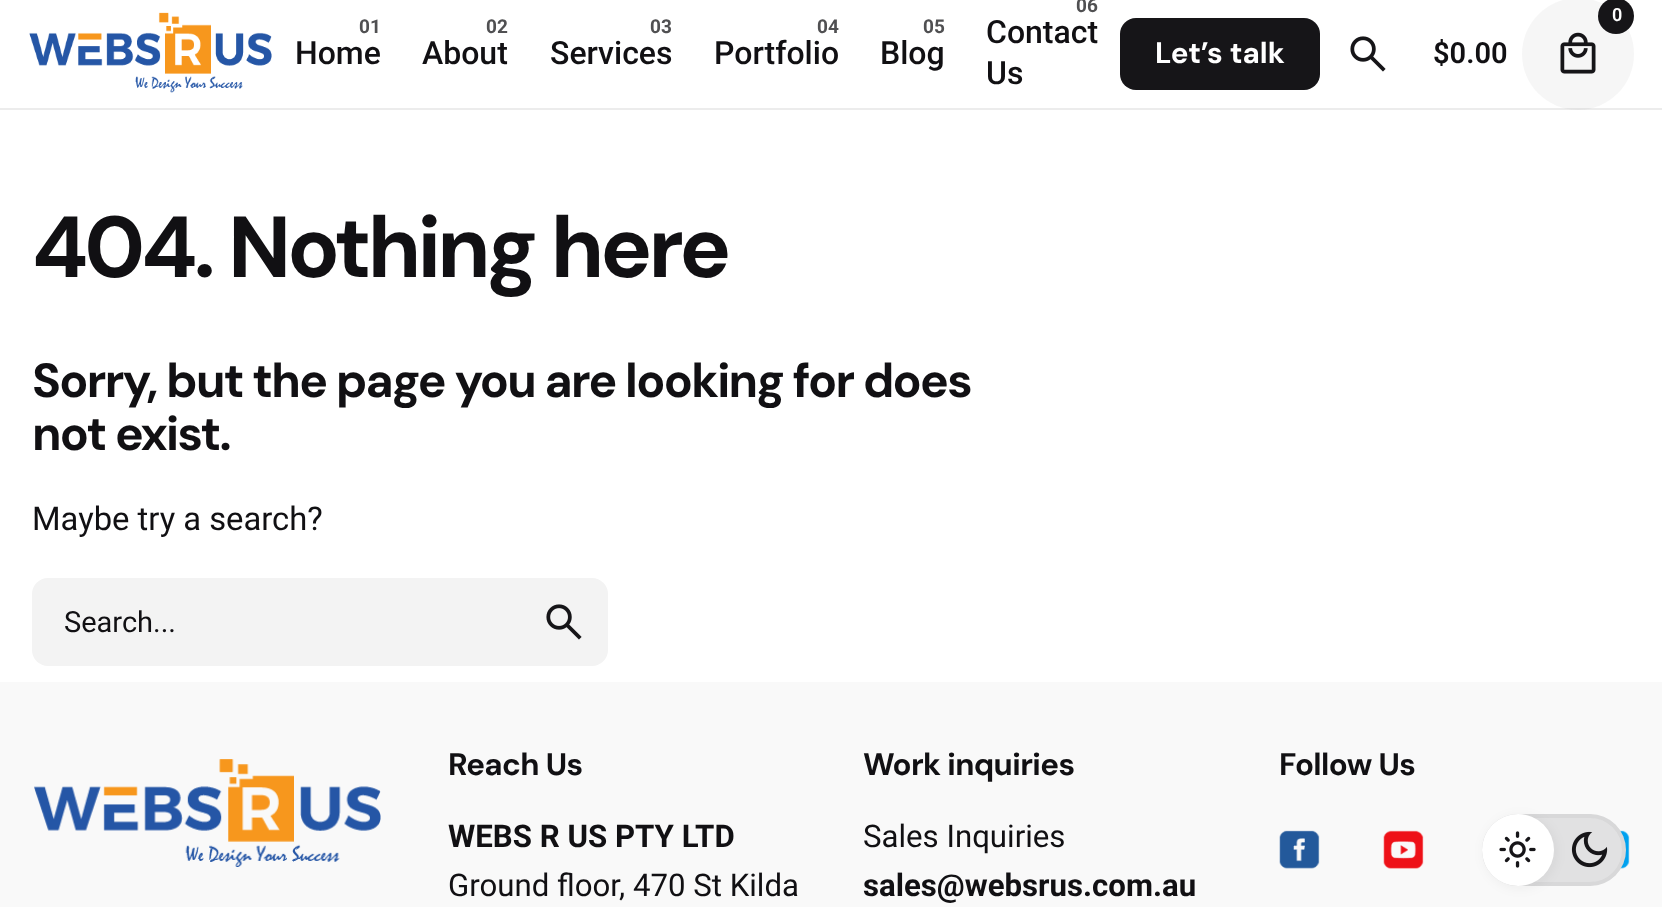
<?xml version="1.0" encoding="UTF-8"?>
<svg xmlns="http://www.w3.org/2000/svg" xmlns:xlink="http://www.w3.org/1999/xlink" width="1662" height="907">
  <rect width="100%" height="100%" fill="#ffffff" />
  <rect y="108" width="1662" height="2" fill="#ececec" />
  <image x="29" y="12" width="243" height="81" xlink:href="image1.png" />
  <rect x="1120" y="18" width="200" height="72" rx="16" fill="#161518" />
  <image x="1350" y="36" width="36" height="36" xlink:href="image2.png" />
  <circle cx="1578" cy="54" r="56" fill="#888889" fill-opacity="0.08" />
  <image x="1560" y="32" width="36" height="42" xlink:href="image3.png" />
  <circle cx="1616" cy="16" r="18" fill="#161518" />
  <rect x="32" y="578" width="576" height="88" rx="16" fill="#f3f3f3" />
  <image x="546" y="604" width="36" height="36" xlink:href="image4.png" />
  <rect y="682" width="1662" height="225" fill="#f9f9f9" />
  <image x="34" y="759" width="347" height="108" xlink:href="image5.png" />
  <image x="1279" y="830" width="41" height="39" xlink:href="image6.png" />
  <image x="1383" y="830" width="41" height="39" xlink:href="image7.png" />
  <image x="1620" y="830" width="10" height="39" xlink:href="image8.png" />
  <rect x="1482" y="814" width="144" height="72" rx="36" fill="#e1e1e2" />
  <rect x="1484" y="816" width="140" height="68" rx="34" fill="none" stroke="#888889" stroke-opacity="0.1" stroke-width="4" />
  <image x="1571" y="831" width="37" height="37" xlink:href="image10.png" />
  <rect x="1484" y="816" width="72" height="72" rx="36" fill="#111013" fill-opacity="0.05" filter="blur(6px)" />
  <circle cx="1518" cy="850" r="36" fill="#ffffff" />
  <image x="1499" y="831" width="37" height="37" xlink:href="image9.png" />
  <text x="359" y="33" style="font-family: Roboto; font-size: 19px; font-weight: bold; fill: #505052">01</text>
  <text x="295" y="64" style="font-family: Roboto; font-size: 32px; font-weight: 500; fill: #111013">Home</text>
  <text x="486" y="33" style="font-family: Roboto; font-size: 19px; font-weight: bold; fill: #505052">02</text>
  <text x="422" y="64" style="font-family: Roboto; font-size: 32px; font-weight: 500; fill: #111013">About</text>
  <text x="650" y="33" style="font-family: Roboto; font-size: 19px; font-weight: bold; fill: #505052">03</text>
  <text x="550" y="64" style="font-family: Roboto; font-size: 32px; font-weight: 500; fill: #111013">Services</text>
  <text x="817" y="33" style="font-family: Roboto; font-size: 19px; font-weight: bold; fill: #505052">04</text>
  <text x="714" y="64" style="font-family: Roboto; font-size: 32px; font-weight: 500; fill: #111013">Portfolio</text>
  <text x="923" y="33" style="font-family: Roboto; font-size: 19px; font-weight: bold; fill: #505052">05</text>
  <text x="880" y="64" style="font-family: Roboto; font-size: 32px; font-weight: 500; fill: #111013">Blog</text>
  <text x="1076" y="12" style="font-family: Roboto; font-size: 19px; font-weight: bold; fill: #505052">06</text>
  <text x="986" y="43" style="font-family: Roboto; font-size: 32px; font-weight: 500; fill: #111013">Contact</text>
  <text x="986" y="84" style="font-family: Roboto; font-size: 32px; font-weight: 500; fill: #111013">Us</text>
  <text x="1155" y="63" style="font-family: DM Sans; font-size: 29.5px; font-weight: bold; fill: #ffffff">Let’s talk</text>
  <text x="1612" y="21" style="font-family: Roboto; font-size: 18px; font-weight: 600; fill: #ffffff">0</text>
  <text x="1433" y="63" style="font-family: Roboto; font-size: 29px; font-weight: 600; fill: #111013">$0.00</text>
  <text x="32" y="277" style="font-family: DM Sans; font-size: 86.5px; font-weight: bold; letter-spacing: -3.9px; fill: #111013">404. Nothing here</text>
  <text x="32" y="397" style="font-family: DM Sans; font-size: 47.9px; font-weight: bold; letter-spacing: -1.7px; fill: #111013">Sorry, but the page you are looking for does</text>
  <text x="32" y="450" style="font-family: DM Sans; font-size: 47.9px; font-weight: bold; letter-spacing: -1.7px; fill: #111013">not exist.</text>
  <text x="32" y="530" style="font-family: Roboto; font-size: 32.75px; fill: #111013">Maybe try a search?</text>
  <text x="64" y="632" style="font-family: Roboto; font-size: 29px; fill: #111013">Search...</text>
  <text x="448" y="775" style="font-family: DM Sans; font-size: 31.2px; font-weight: bold; letter-spacing: -0.6px; fill: #111013">Reach Us</text>
  <text x="448" y="847" style="font-family: Roboto; font-size: 31.2px; font-weight: bold; fill: #111013">WEBS R US PTY LTD</text>
  <text x="448" y="896" style="font-family: Roboto; font-size: 31.2px; fill: #111013">Ground floor, 470 St Kilda</text>
  <text x="863" y="775" style="font-family: DM Sans; font-size: 31.2px; font-weight: bold; letter-spacing: -0.6px; fill: #111013">Work inquiries</text>
  <text x="863" y="847" style="font-family: Roboto; font-size: 31.2px; fill: #111013">Sales Inquiries</text>
  <text x="863" y="896" style="font-family: Roboto; font-size: 31.2px; font-weight: bold; fill: #111013">sales@websrus.com.au</text>
  <text x="1279" y="775" style="font-family: DM Sans; font-size: 31.2px; font-weight: bold; letter-spacing: -0.6px; fill: #111013">Follow Us</text>
</svg>
